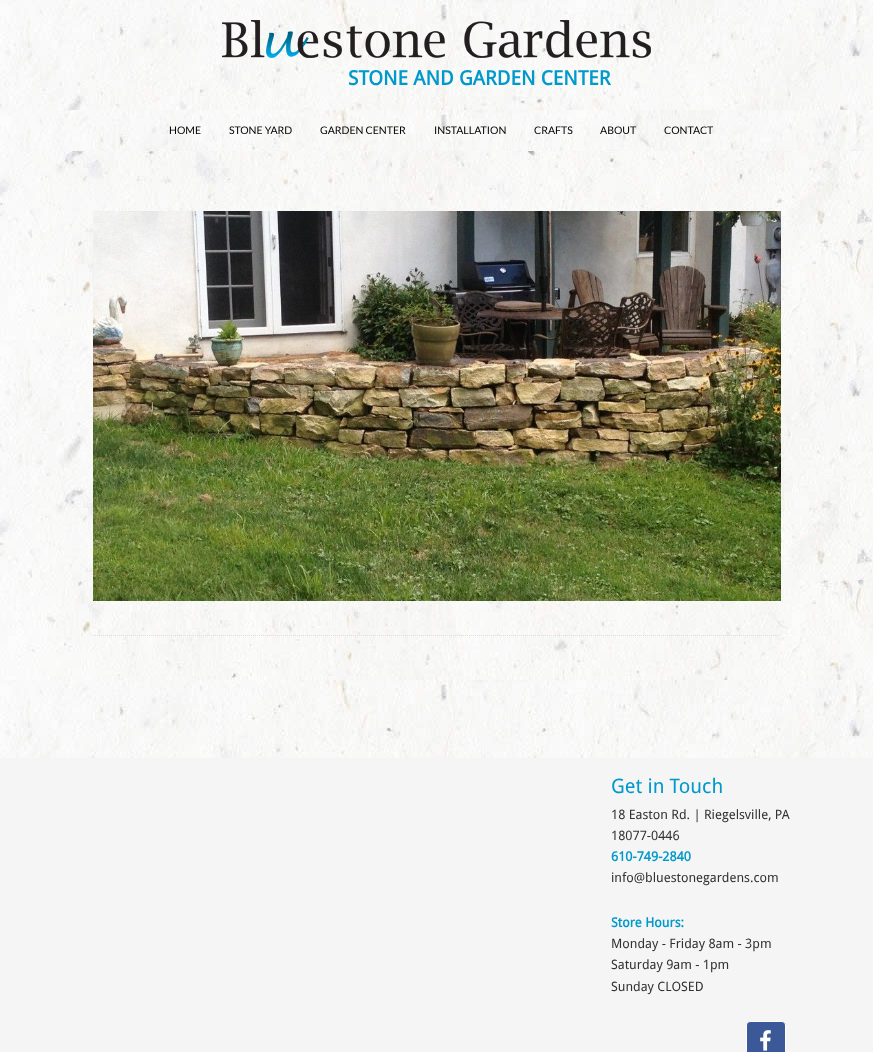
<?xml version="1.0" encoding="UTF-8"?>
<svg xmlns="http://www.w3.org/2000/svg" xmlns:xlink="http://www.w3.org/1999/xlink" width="873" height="1052">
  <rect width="100%" height="100%" fill="#ffffff" />
  <image x="0" y="151" width="873" height="607" xlink:href="image1.png" />
  <image x="0" y="0" width="873" height="110" xlink:href="image2.png" />
  <image x="222" y="20" width="429" height="38" xlink:href="image3.png" />
  <image x="0" y="110" width="873" height="41" xlink:href="image4.png" />
  <image x="93" y="211" width="688" height="390" xlink:href="image5.png" />
  <path d="M 93 635.5 h 688" fill="none" stroke="#dddddd" stroke-dasharray="1 1" />
  <rect y="758" width="873" height="294" fill="#f5f5f5" />
  <rect x="746.5" y="1021.5" width="39" height="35" rx="3.5" fill="#3b5998" stroke="#ffffff" />
  <image x="760" y="1030" width="11" height="21" xlink:href="image6.png" />
  <text x="348" y="85" style="font-family: Droid Sans; font-size: 20px; font-weight: bold; fill: #0099cb">STONE AND GARDEN CENTER</text>
  <text x="169" y="134" style="font-family: Lato; font-size: 10.5px; fill: #000000">HOME</text>
  <text x="229" y="134" style="font-family: Lato; font-size: 10.5px; fill: #000000">STONE YARD</text>
  <text x="320" y="134" style="font-family: Lato; font-size: 10.5px; fill: #000000">GARDEN CENTER</text>
  <text x="434" y="134" style="font-family: Lato; font-size: 10.5px; fill: #000000">INSTALLATION</text>
  <text x="534" y="134" style="font-family: Lato; font-size: 10.5px; fill: #000000">CRAFTS</text>
  <text x="600" y="134" style="font-family: Lato; font-size: 10.5px; fill: #000000">ABOUT</text>
  <text x="664" y="134" style="font-family: Lato; font-size: 10.5px; fill: #000000">CONTACT</text>
  <text x="611" y="793" style="font-family: Droid Sans; font-size: 20px; fill: #0099cb">Get in Touch</text>
  <text x="611" y="819" style="font-family: Droid Sans; font-size: 13px; fill: #333333">18 Easton Rd. | Riegelsville, PA</text>
  <text x="611" y="840" style="font-family: Droid Sans; font-size: 13px; fill: #333333">18077-0446</text>
  <text x="611" y="861" style="font-family: Droid Sans; font-size: 13px; font-weight: bold; fill: #0099cb">610-749-2840</text>
  <text x="611" y="882" style="font-family: Droid Sans; font-size: 13px; fill: #333333">info@bluestonegardens.com</text>
  <text x="611" y="927" style="font-family: Droid Sans; font-size: 13px; font-weight: bold; fill: #0099cb">Store Hours:</text>
  <text x="611" y="948" style="font-family: Droid Sans; font-size: 13px; fill: #333333">Monday - Friday 8am - 3pm</text>
  <text x="611" y="969" style="font-family: Droid Sans; font-size: 13px; fill: #333333">Saturday 9am - 1pm</text>
  <text x="611" y="991" style="font-family: Droid Sans; font-size: 13px; fill: #333333">Sunday CLOSED</text>
</svg>
